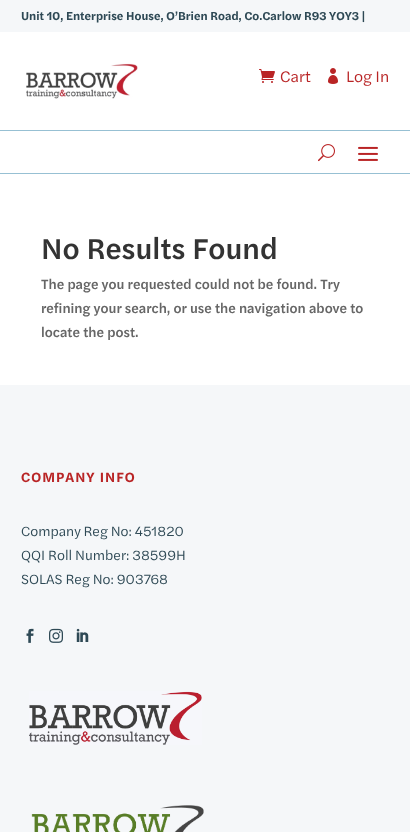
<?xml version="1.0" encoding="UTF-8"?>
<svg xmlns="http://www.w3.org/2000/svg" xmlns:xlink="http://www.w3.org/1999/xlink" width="410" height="832">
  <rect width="100%" height="100%" fill="#ffffff" />
  <rect width="410" height="32" fill="#f5f7f9" />
  <image x="26" y="63" width="112" height="36" xlink:href="image1.png" />
  <image x="259" y="69" width="16" height="14" xlink:href="image2.png" />
  <image x="328" y="68" width="10" height="16" xlink:href="image3.png" />
  <rect y="130" width="410" height="1" fill="#97c0d3" />
  <rect y="173" width="410" height="1" fill="#97c0d3" />
  <image x="318" y="144" width="17" height="18" xlink:href="image4.png" />
  <image x="358" y="146" width="20" height="15" xlink:href="image5.png" />
  <rect y="385" width="410" height="447" fill="#f5f7f9" />
  <image x="26" y="628" width="8" height="15" xlink:href="image6.png" />
  <image x="49" y="628" width="14" height="15" xlink:href="image7.png" />
  <image x="76" y="628" width="13" height="14" xlink:href="image8.png" />
  <image x="29" y="691" width="173" height="54" xlink:href="image9.png" />
  <image x="31" y="805" width="173" height="27" xlink:href="image10.png" />
  <text x="21" y="20" style="font-family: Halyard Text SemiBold; font-size: 12px; font-weight: 600; fill: #2e4955">Unit 10, Enterprise House, O’Brien Road, Co.Carlow R93 YOY3 |</text>
  <text x="280" y="82" style="font-family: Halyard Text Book; font-size: 16px; fill: #b92425">Cart</text>
  <text x="346" y="82" style="font-family: Halyard Text Book; font-size: 16px; fill: #b92425">Log In</text>
  <text x="41" y="259" style="font-family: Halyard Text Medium; font-size: 30px; font-weight: 500; fill: #333333">No Results Found</text>
  <text x="41" y="289" style="font-family: Halyard Text Medium; font-size: 14px; font-weight: 500; fill: #666666">The page you requested could not be found. Try</text>
  <text x="41" y="313" style="font-family: Halyard Text Medium; font-size: 14px; font-weight: 500; fill: #666666">refining your search, or use the navigation above to</text>
  <text x="41" y="337" style="font-family: Halyard Text Medium; font-size: 14px; font-weight: 500; fill: #666666">locate the post.</text>
  <text x="21" y="482" style="font-family: Halyard Text SemiBold; font-size: 14px; font-weight: 600; letter-spacing: 1px; fill: #b92425">COMPANY INFO</text>
  <text x="21" y="536" style="font-family: Halyard Text Book; font-size: 14px; fill: #2e4955">Company Reg No: 451820</text>
  <text x="21" y="560" style="font-family: Halyard Text Book; font-size: 14px; fill: #2e4955">QQI Roll Number: 38599H</text>
  <text x="21" y="584" style="font-family: Halyard Text Book; font-size: 14px; fill: #2e4955">SOLAS Reg No: 903768</text>
</svg>
